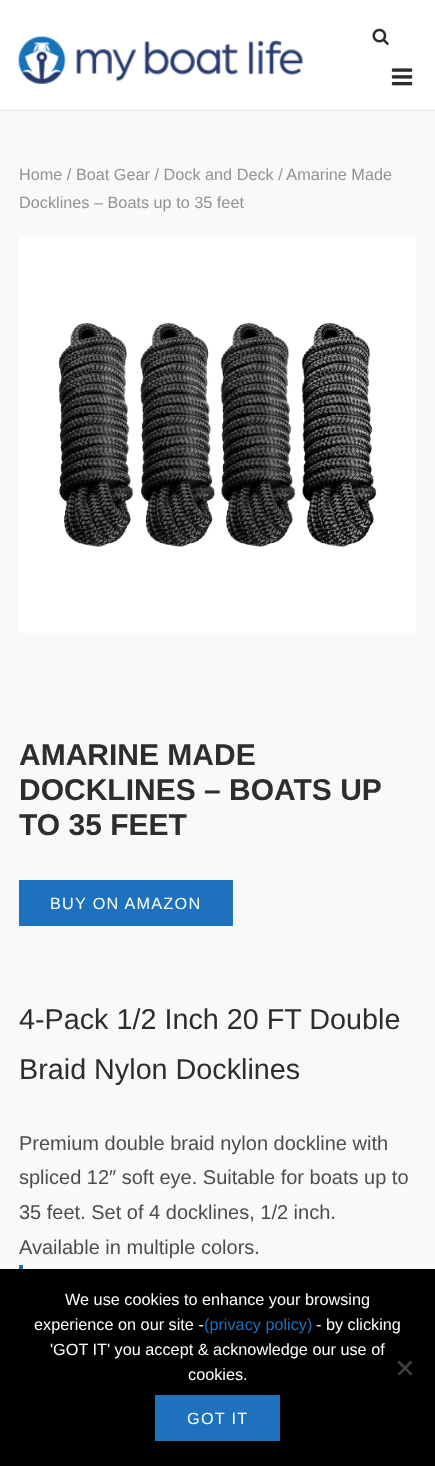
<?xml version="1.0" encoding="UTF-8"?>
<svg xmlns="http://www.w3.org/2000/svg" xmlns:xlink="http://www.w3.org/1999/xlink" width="435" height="1466">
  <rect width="100%" height="100%" fill="#f9f9f9" />
  <rect width="435" height="110" fill="#ffffff" />
  <rect y="110" width="435" height="1" fill="#e6e6e6" />
  <image x="18" y="36" width="285" height="48" xlink:href="image1.png" />
  <image x="372" y="28" width="17" height="17" xlink:href="image2.png" />
  <image x="391" y="68" width="22" height="18" xlink:href="image3.png" />
  <image x="19" y="237" width="397" height="396" xlink:href="image4.png" />
  <rect x="19" y="880" width="214" height="46" fill="#1e71bc" />
  <rect x="19" y="1265" width="4" height="4" fill="#1e71bc" />
  <rect y="1269" width="435" height="197" fill="#000000" />
  <path d="M 410.5 1360.5 l 2 2 l -13 13 l -2 -1.5 z" fill="#404040" />
  <path d="M 397.5 1362.5 l 2 -2 l 13 13.5 l -2 1.5 z" fill="#404040" />
  <rect x="155" y="1395" width="125" height="46" fill="#1e71bc" />
  <text x="19" y="180" style="font-family: Liberation Sans; font-size: 16.25px; fill: #929292">Home / Boat Gear / Dock and Deck / Amarine Made</text>
  <text x="19" y="208" style="font-family: Liberation Sans; font-size: 16.25px; fill: #929292">Docklines – Boats up to 35 feet</text>
  <text x="19" y="765" style="font-family: Liberation Sans; font-size: 30px; font-weight: bold; fill: #2d2d2d">AMARINE MADE</text>
  <text x="19" y="800" style="font-family: Liberation Sans; font-size: 30px; font-weight: bold; fill: #2d2d2d">DOCKLINES – BOATS UP</text>
  <text x="19" y="835" style="font-family: Liberation Sans; font-size: 30px; font-weight: bold; fill: #2d2d2d">TO 35 FEET</text>
  <text x="50" y="909" style="font-family: Liberation Sans; font-size: 16.25px; letter-spacing: 1.25px; fill: #ffffff">BUY ON AMAZON</text>
  <text x="19" y="1029" style="font-family: Liberation Sans; font-size: 28.75px; fill: #2d2d2d">4-Pack 1/2 Inch 20 FT Double</text>
  <text x="19" y="1079" style="font-family: Liberation Sans; font-size: 28.75px; fill: #2d2d2d">Braid Nylon Docklines</text>
  <text x="19" y="1150" style="font-family: Liberation Sans; font-size: 20px; fill: #4c4c4c">Premium double braid nylon dockline with</text>
  <text x="19" y="1184" style="font-family: Liberation Sans; font-size: 20px; fill: #4c4c4c">spliced 12″ soft eye. Suitable for boats up to</text>
  <text x="19" y="1219" style="font-family: Liberation Sans; font-size: 20px; fill: #4c4c4c">35 feet. Set of 4 docklines, 1/2 inch.</text>
  <text x="19" y="1254" style="font-family: Liberation Sans; font-size: 20px; fill: #4c4c4c">Available in multiple colors.</text>
  <text x="65" y="1305" style="font-family: Liberation Sans; font-size: 16.25px; fill: #ffffff">We use cookies to enhance your browsing</text>
  <text x="34" y="1330" style="font-family: Liberation Sans; font-size: 16.25px; fill: #ffffff">experience on our site -</text>
  <text x="204" y="1330" style="font-family: Liberation Sans; font-size: 16.25px; fill: #1e71bc">(privacy policy)</text>
  <text x="316" y="1330" style="font-family: Liberation Sans; font-size: 16.25px; fill: #ffffff">- by clicking</text>
  <text x="50" y="1355" style="font-family: Liberation Sans; font-size: 16.25px; fill: #ffffff">'GOT IT' you accept &amp; acknowledge our use of</text>
  <text x="188" y="1380" style="font-family: Liberation Sans; font-size: 16.25px; fill: #ffffff">cookies.</text>
  <text x="187" y="1424" style="font-family: Liberation Sans; font-size: 16.25px; letter-spacing: 1.25px; fill: #ffffff">GOT IT</text>
</svg>
